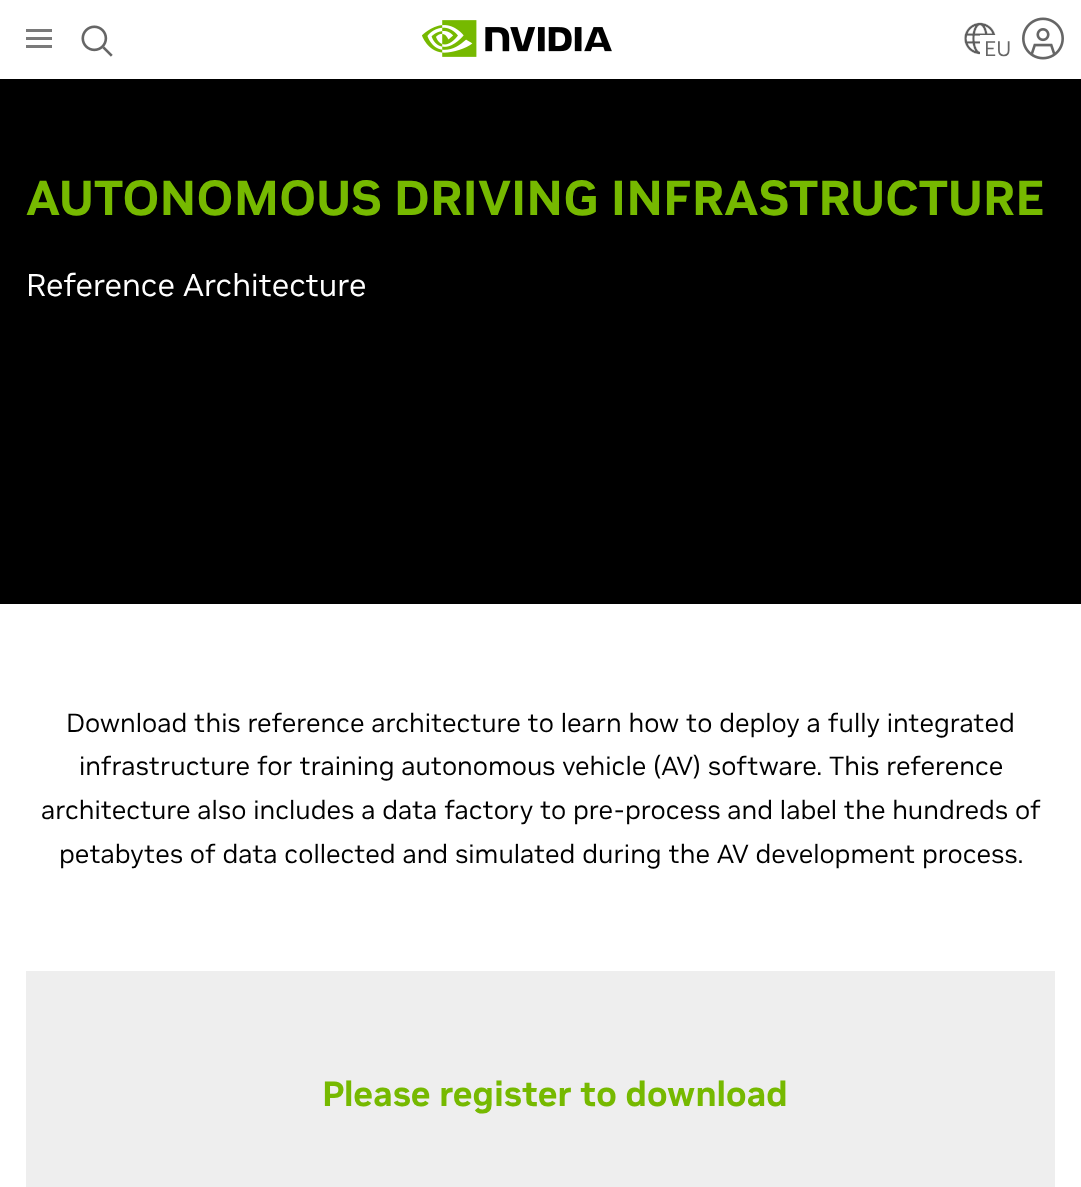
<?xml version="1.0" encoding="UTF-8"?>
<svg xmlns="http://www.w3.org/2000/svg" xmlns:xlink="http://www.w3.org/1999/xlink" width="1081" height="1187">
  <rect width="100%" height="100%" fill="#ffffff" />
  <rect x="26" y="29" width="26" height="3" fill="#7a7a7a" />
  <rect x="26" y="37" width="26" height="3" fill="#7a7a7a" />
  <rect x="26" y="45" width="26" height="3" fill="#7a7a7a" />
  <image x="81" y="25" width="32" height="32" xlink:href="image1.png" />
  <image x="422" y="20" width="190" height="37" xlink:href="image2.png" />
  <image x="964" y="22" width="32" height="33" xlink:href="image3.png" />
  <rect x="980" y="35" width="16" height="20" fill="#ffffff" />
  <image x="1022" y="17" width="42" height="43" xlink:href="image4.png" />
  <rect y="79" width="1081" height="525" fill="#000000" />
  <rect x="26" y="971" width="1029" height="216" fill="#eeeeee" />
  <text x="984" y="56" style="font-family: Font; font-size: 21px; fill: #666666">EU</text>
  <text x="26" y="215" style="font-family: 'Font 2'; font-size: 49px; font-weight: bold; fill: #76b900">AUTONOMOUS DRIVING INFRASTRUCTURE</text>
  <text x="26" y="296" style="font-family: Font; font-size: 31.5px; fill: #ffffff">Reference Architecture</text>
  <text x="66" y="732" style="font-family: Font; font-size: 26.25px; fill: #000000">Download this reference architecture to learn how to deploy a fully integrated</text>
  <text x="79" y="775" style="font-family: Font; font-size: 26.25px; fill: #000000">infrastructure for training autonomous vehicle (AV) software. This reference</text>
  <text x="41" y="819" style="font-family: Font; font-size: 26.25px; fill: #000000">architecture also includes a data factory to pre-process and label the hundreds of</text>
  <text x="59" y="863" style="font-family: Font; font-size: 26.25px; fill: #000000">petabytes of data collected and simulated during the AV development process.</text>
  <text x="322" y="1106" style="font-family: Font; font-size: 35px; font-weight: bold; fill: #76b900">Please register to download</text>
</svg>
